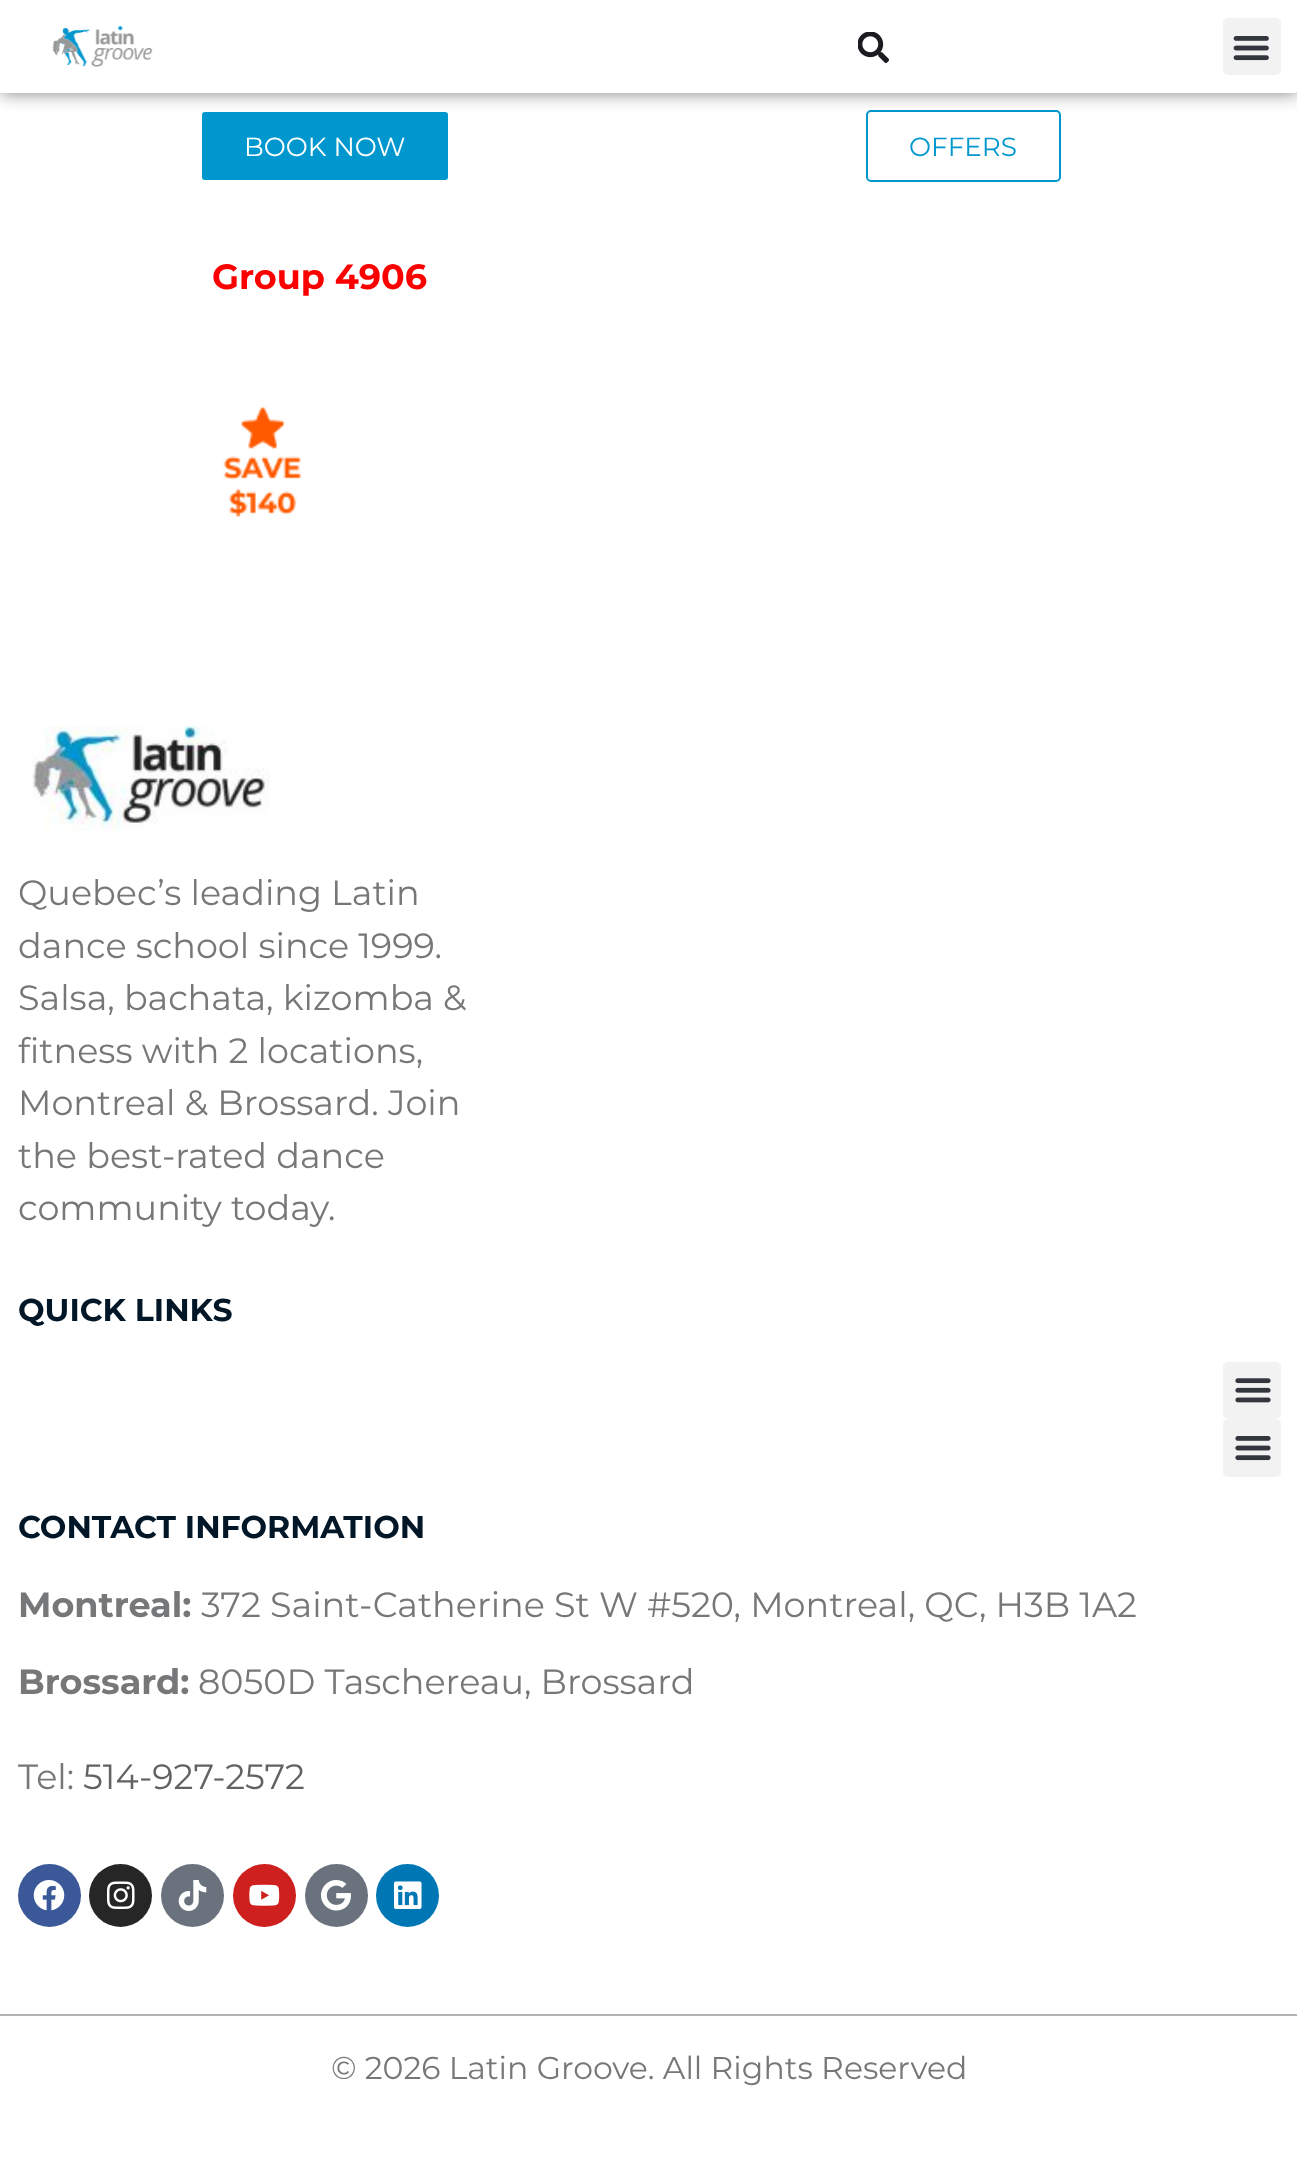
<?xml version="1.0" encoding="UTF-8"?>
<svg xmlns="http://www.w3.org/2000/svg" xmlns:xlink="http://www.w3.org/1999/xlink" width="1297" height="2174">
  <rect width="100%" height="100%" fill="#ffffff" />
  <rect x="201" y="111" width="248" height="70" rx="4" fill="#0097ce" stroke="#ffffff" stroke-width="2" />
  <rect x="867" y="111" width="193" height="70" rx="4" fill="none" stroke="#0097ce" stroke-width="2" />
  <rect width="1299" height="93" rx="5" fill="#000000" fill-opacity="0.5" filter="blur(9px)" />
  <path d="M 0 0 h 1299 v 88 c 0 3 -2 5 -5 5 h -1294 z" fill="#ffffff" />
  <image x="52" y="26" width="101" height="41" xlink:href="image1.png" />
  <image x="858" y="32" width="31" height="31" xlink:href="image2.png" />
  <rect x="1223" y="18" width="58" height="57" rx="5" fill="#f2f2f2" />
  <image x="1233" y="36" width="36" height="25" xlink:href="image3.png" />
  <image x="223" y="407" width="79" height="110" xlink:href="image4.png" />
  <image x="32" y="726" width="238" height="105" xlink:href="image5.png" />
  <rect x="1223" y="1362" width="58" height="57" rx="5" fill="#f2f2f2" />
  <image x="1235" y="1378" width="36" height="25" xlink:href="image6.png" />
  <rect x="1223" y="1419" width="58" height="58" rx="5" fill="#f2f2f2" />
  <image x="1235" y="1436" width="36" height="25" xlink:href="image7.png" />
  <circle cx="49.5" cy="1895.5" r="31.5" fill="#3b5998" />
  <image x="33" y="1880" width="32" height="31" xlink:href="image8.png" />
  <circle cx="120.5" cy="1895.5" r="31.5" fill="#262626" />
  <image x="106" y="1881" width="29" height="28" xlink:href="image9.png" />
  <circle cx="192.5" cy="1895.5" r="31.5" fill="#69727d" />
  <image x="178" y="1880" width="29" height="31" xlink:href="image10.png" />
  <circle cx="264.5" cy="1895.5" r="31.5" fill="#cd201f" />
  <image x="249" y="1884" width="31" height="22" xlink:href="image11.png" />
  <circle cx="336.5" cy="1895.5" r="31.5" fill="#69727d" />
  <image x="321" y="1880" width="30" height="31" xlink:href="image12.png" />
  <circle cx="407.5" cy="1895.5" r="31.5" fill="#0077b5" />
  <image x="393" y="1881" width="29" height="28" xlink:href="image13.png" />
  <rect y="2014" width="1297" height="2" fill="#b3b3b3" />
  <text x="244" y="156" style="font-family: Montserrat; font-size: 26.25px; fill: #ffffff">BOOK NOW</text>
  <text x="909" y="156" style="font-family: Montserrat; font-size: 26.25px; fill: #0097ce">OFFERS</text>
  <text x="212" y="289" style="font-family: Montserrat; font-size: 35px; font-weight: bold; fill: #fc0000">Group 4906</text>
  <text x="18" y="905" style="font-family: Montserrat; font-size: 35px; fill: #767779">Quebec’s leading Latin</text>
  <text x="18" y="958" style="font-family: Montserrat; font-size: 35px; fill: #767779">dance school since 1999.</text>
  <text x="18" y="1010" style="font-family: Montserrat; font-size: 35px; fill: #767779">Salsa, bachata, kizomba &amp;</text>
  <text x="18" y="1063" style="font-family: Montserrat; font-size: 35px; fill: #767779">fitness with 2 locations,</text>
  <text x="18" y="1115" style="font-family: Montserrat; font-size: 35px; fill: #767779">Montreal &amp; Brossard. Join</text>
  <text x="18" y="1168" style="font-family: Montserrat; font-size: 35px; fill: #767779">the best-rated dance</text>
  <text x="18" y="1220" style="font-family: Montserrat; font-size: 35px; fill: #767779">community today.</text>
  <text x="18" y="1321" style="font-family: Montserrat; font-size: 31.5px; font-weight: bold; fill: #011627">QUICK LINKS</text>
  <text x="18" y="1538" style="font-family: Montserrat; font-size: 31.5px; font-weight: bold; fill: #011627">CONTACT INFORMATION</text>
  <text x="18" y="1617" style="font-family: Montserrat; font-size: 35px; font-weight: bold; fill: #767779">Montreal:</text>
  <text x="201" y="1617" style="font-family: Montserrat; font-size: 35px; fill: #767779">372 Saint-Catherine St W #520, Montreal, QC, H3B 1A2</text>
  <text x="18" y="1694" style="font-family: Montserrat; font-size: 35px; font-weight: bold; fill: #767779">Brossard:</text>
  <text x="198" y="1694" style="font-family: Montserrat; font-size: 35px; fill: #767779">8050D Taschereau, Brossard</text>
  <text x="18" y="1789" style="font-family: Montserrat; font-size: 35px; fill: #767779">Tel:</text>
  <text x="83" y="1789" style="font-family: Montserrat; font-size: 35px; fill: #626262">514-927-2572</text>
  <text x="331" y="2079" style="font-family: Montserrat; font-size: 31.5px; fill: #767779">© 2026 Latin Groove. All Rights Reserved</text>
</svg>
